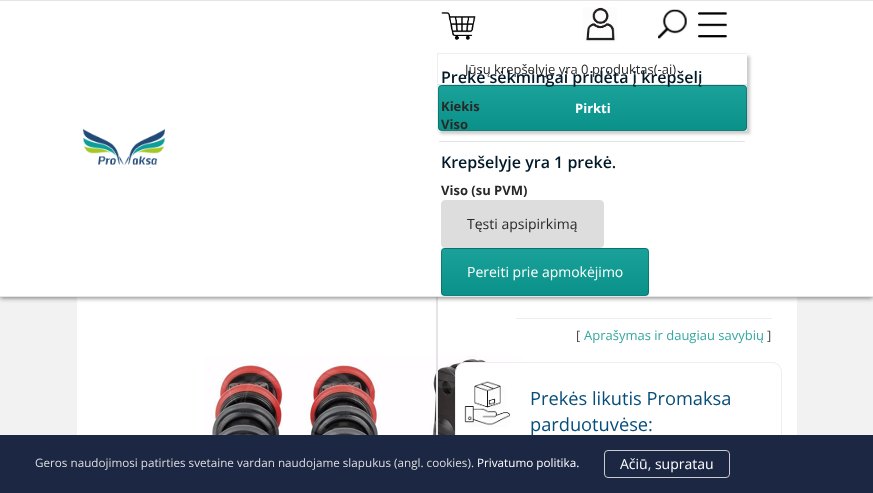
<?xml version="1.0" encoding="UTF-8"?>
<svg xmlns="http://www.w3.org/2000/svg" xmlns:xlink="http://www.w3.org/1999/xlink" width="873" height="493">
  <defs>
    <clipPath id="clip1"><path d="M 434 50 h 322 v 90 h -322 z m 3 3 h 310 v 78 h -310 z" clip-rule="evenodd" /></clipPath>
    <clipPath id="clip2"><rect x="438" y="85" width="309" height="46" rx="4" /></clipPath>
    <linearGradient id="g1" gradientUnits="userSpaceOnUse" x1="593" y1="42" x2="593" y2="86"><stop offset="0" stop-color="#1aa29a" /><stop offset="1" stop-color="#0a928a" /></linearGradient>
    <linearGradient id="g2" gradientUnits="userSpaceOnUse" x1="593" y1="86" x2="593" y2="130"><stop offset="0" stop-color="#1aa29a" /><stop offset="1" stop-color="#0a928a" /></linearGradient>
    <linearGradient id="g3" gradientUnits="userSpaceOnUse" x1="593" y1="130" x2="593" y2="174"><stop offset="0" stop-color="#1aa29a" /><stop offset="1" stop-color="#0a928a" /></linearGradient>
    <clipPath id="clip3"><rect x="441" y="248" width="208" height="48" rx="4" /></clipPath>
    <linearGradient id="g4" gradientUnits="userSpaceOnUse" x1="545" y1="203" x2="545" y2="249"><stop offset="0" stop-color="#1aa29a" /><stop offset="1" stop-color="#0a928a" /></linearGradient>
    <linearGradient id="g5" gradientUnits="userSpaceOnUse" x1="545" y1="249" x2="545" y2="295"><stop offset="0" stop-color="#1aa29a" /><stop offset="1" stop-color="#0a928a" /></linearGradient>
    <linearGradient id="g6" gradientUnits="userSpaceOnUse" x1="545" y1="295" x2="545" y2="341"><stop offset="0" stop-color="#1aa29a" /><stop offset="1" stop-color="#0a928a" /></linearGradient>
  </defs>
  <rect width="100%" height="100%" fill="#f2f2f2" />
  <rect x="77" y="297" width="720" height="138" fill="#ffffff" />
  <image x="204" y="356" width="319" height="79" xlink:href="image6.png" />
  <rect x="436" y="297" width="2" height="138" fill="#e5e5e9" />
  <rect y="1" width="873" height="297" fill="#000000" fill-opacity="0.5" filter="blur(2.5px)" />
  <rect y="1" width="873" height="295" fill="#ffffff" />
  <rect y="296" width="873" height="1" fill="#e5e5e9" />
  <rect width="873" height="1" fill="#e5e5e9" />
  <image x="82" y="129" width="83" height="39" xlink:href="image1.png" />
  <image x="583" y="7" width="34" height="35" xlink:href="image2.png" />
  <image x="658" y="9" width="29" height="30" xlink:href="image3.png" />
  <image x="698" y="12" width="29" height="26" xlink:href="image4.png" />
  <image x="441" y="12" width="35" height="28" xlink:href="image5.png" />
  <rect x="439" y="141" width="306" height="1" fill="#e5e5e9" />
  <g clip-path="url(#clip1)">
    <rect x="440" y="56" width="310" height="78" fill="#000000" fill-opacity="0.2" filter="blur(1.5px)" />
  </g>
  <rect x="437" y="53" width="310" height="1" fill="#eeeeee" />
  <rect x="437" y="53" width="1" height="78" fill="#eeeeee" />
  <rect x="438" y="84" width="309" height="1" fill="#e5e5e9" />
  <rect x="438" y="85" width="309" height="46" fill="#f9f9f9" />
  <g clip-path="url(#clip2)">
    <rect x="438" y="85" width="309" height="1" fill="url(#g1)" />
    <rect x="438" y="86" width="309" height="44" fill="url(#g2)" />
    <rect x="438" y="130" width="309" height="1" fill="url(#g3)" />
  </g>
  <rect x="438.5" y="85.5" width="308" height="45" rx="3.5" fill="none" stroke="#000000" stroke-opacity="0.21" />
  <rect x="441.5" y="200.5" width="162" height="47" rx="3.5" fill="#dddddd" stroke="#dddddd" />
  <g clip-path="url(#clip3)">
    <rect x="441" y="248" width="208" height="1" fill="url(#g4)" />
    <rect x="441" y="249" width="208" height="46" fill="url(#g5)" />
    <rect x="441" y="295" width="208" height="1" fill="url(#g6)" />
  </g>
  <rect x="441.5" y="248.5" width="207" height="47" rx="3.5" fill="none" stroke="#000000" stroke-opacity="0.21" />
  <rect x="516" y="318" width="256" height="1" fill="#eeeeee" />
  <rect x="455.5" y="362.5" width="326" height="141" rx="9.5" fill="#ffffff" stroke="#eeeeee" />
  <image x="464" y="381" width="47" height="46" xlink:href="image7.png" />
  <text x="465" y="74" style="font-family: Open Sans; font-size: 13px; fill: #282828">Jūsų krepšelyje yra 0 produktas(-ai)</text>
  <text x="575" y="113" style="font-family: Open Sans; font-size: 13px; font-weight: bold; fill: #ffffff">Pirkti</text>
  <text x="441" y="83" style="font-family: Open Sans; font-size: 16px; font-weight: 600; fill: #011928">Prekė sėkmingai pridėta į krepšelį</text>
  <text x="441" y="111" style="font-family: Open Sans; font-size: 13px; font-weight: bold; fill: #282828">Kiekis</text>
  <text x="441" y="129" style="font-family: Open Sans; font-size: 13px; font-weight: bold; fill: #282828">Viso</text>
  <text x="441" y="168" style="font-family: Open Sans; font-size: 16px; font-weight: 600; fill: #011928">Krepšelyje yra 1 prekė.</text>
  <text x="441" y="195" style="font-family: Open Sans; font-size: 13px; font-weight: bold; fill: #282828">Viso (su PVM)</text>
  <text x="467" y="229" style="font-family: Open Sans; font-size: 14px; fill: #282828">Tęsti apsipirkimą</text>
  <text x="467" y="277" style="font-family: Open Sans; font-size: 14px; fill: #ffffff">Pereiti prie apmokėjimo</text>
  <text x="576" y="340" style="font-family: Open Sans; font-size: 13px; fill: #444444">[</text>
  <text x="584" y="340" style="font-family: Open Sans; font-size: 13px; fill: #36a8a1">Aprašymas ir daugiau savybių</text>
  <text x="767" y="340" style="font-family: Open Sans; font-size: 13px; fill: #444444">]</text>
  <text x="530" y="405" style="font-family: Open Sans; font-size: 18.25px; fill: #074d7a">Prekės likutis Promaksa</text>
  <text x="530" y="431" style="font-family: Open Sans; font-size: 18.25px; fill: #074d7a">parduotuvėse:</text>
  <rect y="435" width="873" height="58" fill="#1c2744" />
  <text x="35" y="467" style="font-family: Open Sans; font-size: 11.7px; fill: #dddddd">Geros naudojimosi patirties svetaine vardan naudojame slapukus (angl. cookies).</text>
  <text x="477" y="467" style="font-family: Open Sans; font-size: 11.7px; fill: #ffffff">Privatumo politika.</text>
  <rect x="604.5" y="450.5" width="125" height="27" rx="3.5" fill="none" stroke="#cccccc" />
  <text x="620" y="469" style="font-family: Open Sans; font-size: 14px; fill: #ffffff">Ačiū, supratau</text>
</svg>
